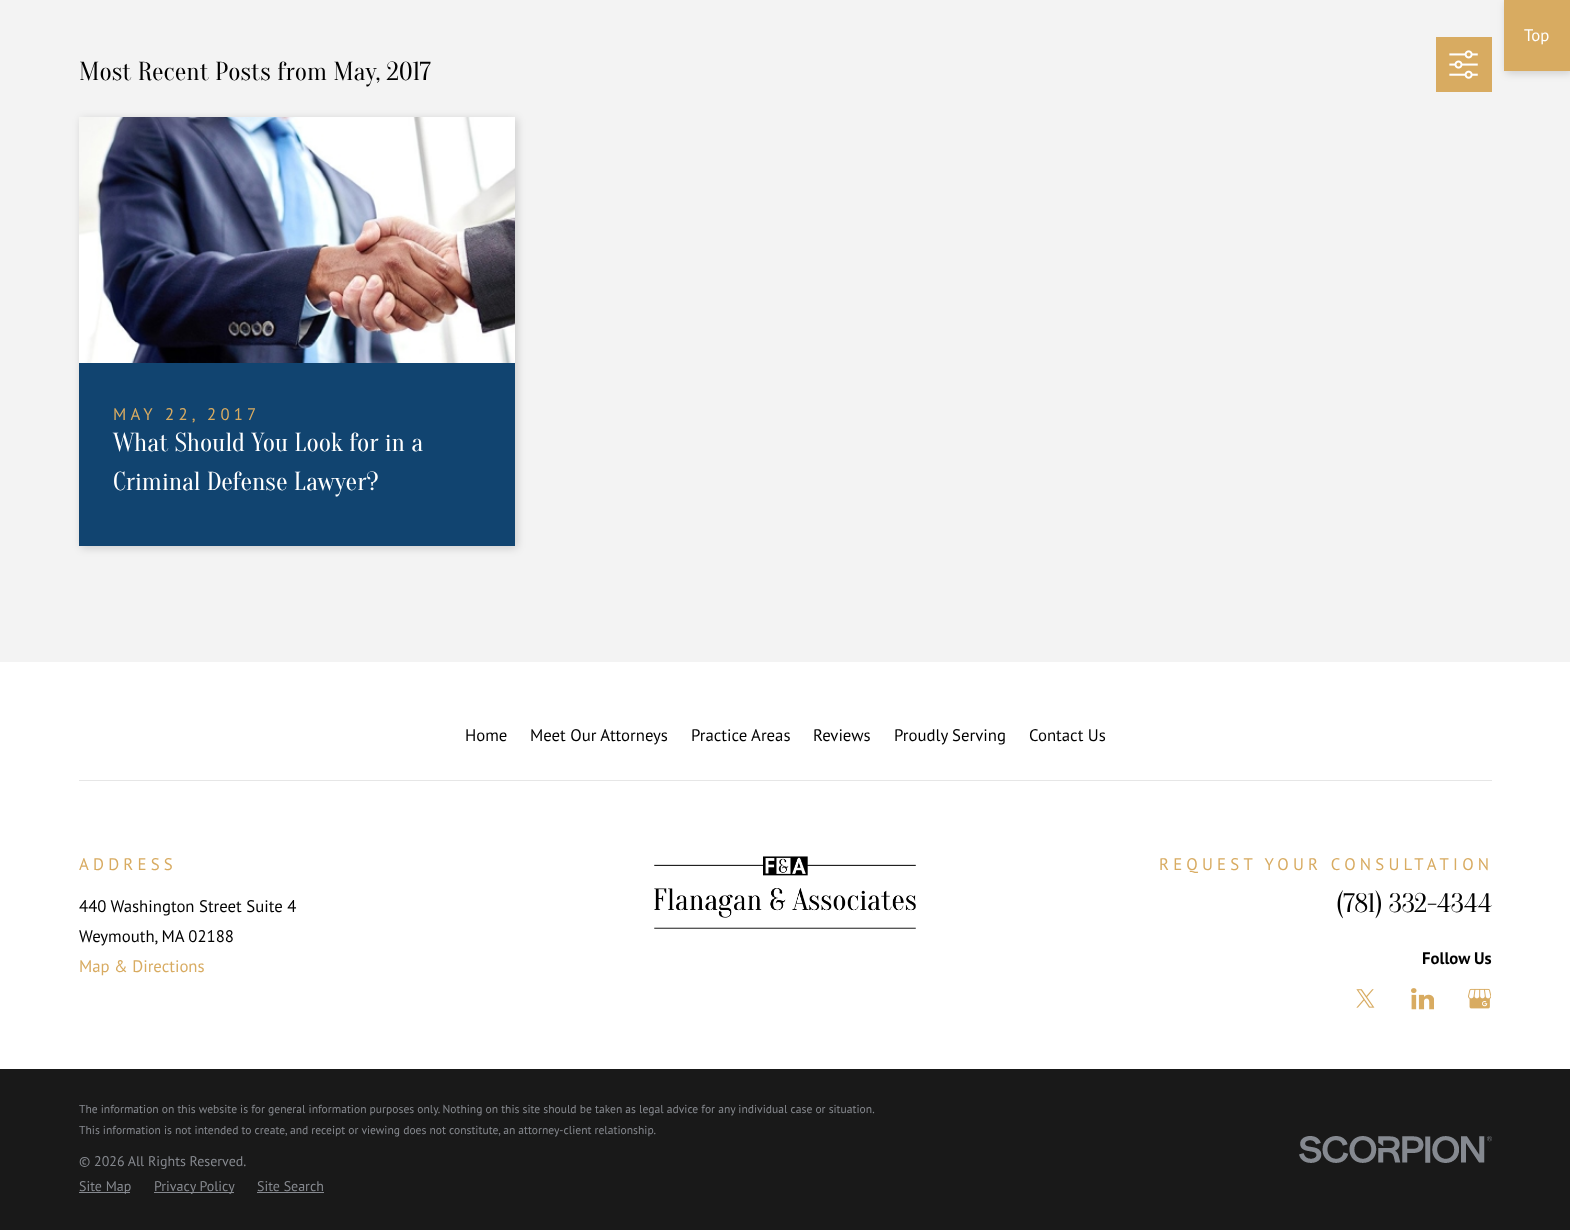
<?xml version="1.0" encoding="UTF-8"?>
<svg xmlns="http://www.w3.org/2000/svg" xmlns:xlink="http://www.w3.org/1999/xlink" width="1570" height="1230">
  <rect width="100%" height="100%" fill="#ffffff" />
  <rect width="1570" height="662" fill="#f3f3f3" />
  <rect x="1506" y="2" width="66" height="71" fill="#000000" fill-opacity="0.16" filter="blur(4px)" />
  <rect x="1504" width="66" height="71" fill="#d8ab61" />
  <rect x="1436" y="37" width="56" height="55" fill="#d8ab61" />
  <image x="1449" y="50" width="29" height="29" xlink:href="image1.png" />
  <rect x="81" y="119" width="436" height="429" fill="#000000" fill-opacity="0.16" filter="blur(4px)" />
  <image x="79" y="117" width="436" height="246" xlink:href="image2.png" />
  <rect x="79" y="363" width="436" height="183" fill="#114470" />
  <rect x="79" y="780" width="1413" height="1" fill="#e6e6e6" />
  <image x="654" y="856" width="262" height="73" xlink:href="image3.png" />
  <image x="1356" y="989" width="19" height="19" xlink:href="image4.png" />
  <image x="1411" y="988" width="23" height="22" xlink:href="image5.png" />
  <image x="1468" y="988" width="23" height="21" xlink:href="image6.png" />
  <rect y="1069" width="1570" height="161" fill="#191919" />
  <rect x="79" y="1192" width="51" height="1" fill="#86898f" />
  <rect x="154" y="1192" width="80" height="1" fill="#86898f" />
  <rect x="257" y="1192" width="67" height="1" fill="#86898f" />
  <image x="1299" y="1136" width="193" height="27" xlink:href="image7.png" />
  <text x="1524" y="41" style="font-family: PT Sans; font-size: 16.75px; fill: #ffffff">Top</text>
  <text x="79" y="80" style="font-family: Oranienbaum; font-size: 26px; fill: #000000">Most Recent Posts from May, 2017</text>
  <text x="113" y="420" style="font-family: PT Sans; font-size: 16.75px; letter-spacing: 4.2px; fill: #d8ab61">MAY 22, 2017</text>
  <text x="113" y="451" style="font-family: Oranienbaum; font-size: 26px; fill: #ffffff">What Should You Look for in a</text>
  <text x="113" y="490" style="font-family: Oranienbaum; font-size: 26px; fill: #ffffff">Criminal Defense Lawyer?</text>
  <text x="465" y="741" style="font-family: PT Sans; font-size: 16.75px; fill: #000000">Home</text>
  <text x="530" y="741" style="font-family: PT Sans; font-size: 16.75px; fill: #000000">Meet Our Attorneys</text>
  <text x="691" y="741" style="font-family: PT Sans; font-size: 16.75px; fill: #000000">Practice Areas</text>
  <text x="813" y="741" style="font-family: PT Sans; font-size: 16.75px; fill: #000000">Reviews</text>
  <text x="894" y="741" style="font-family: PT Sans; font-size: 16.75px; fill: #000000">Proudly Serving</text>
  <text x="1029" y="741" style="font-family: PT Sans; font-size: 16.75px; fill: #000000">Contact Us</text>
  <text x="79" y="870" style="font-family: PT Sans; font-size: 16.75px; letter-spacing: 4.2px; fill: #d8ab61">ADDRESS</text>
  <text x="79" y="912" style="font-family: PT Sans; font-size: 16.75px; fill: #000000">440 Washington Street Suite 4</text>
  <text x="79" y="942" style="font-family: PT Sans; font-size: 16.75px; fill: #000000">Weymouth, MA 02188</text>
  <text x="79" y="972" style="font-family: PT Sans; font-size: 16.75px; fill: #d8ab61">Map &amp; Directions</text>
  <text x="1159" y="870" style="font-family: PT Sans; font-size: 16.75px; letter-spacing: 4.2px; fill: #d8ab61">REQUEST YOUR CONSULTATION</text>
  <text x="1336" y="912" style="font-family: Oranienbaum; font-size: 26.75px; fill: #000000">(781) 332-4344</text>
  <text x="1422" y="964" style="font-family: PT Sans; font-size: 16.75px; font-weight: bold; fill: #000000">Follow Us</text>
  <text x="79" y="1113" style="font-family: PT Sans; font-size: 11.6px; fill: #86898f">The information on this website is for general information purposes only. Nothing on this site should be taken as legal advice for any individual case or situation.</text>
  <text x="79" y="1134" style="font-family: PT Sans; font-size: 11.6px; fill: #86898f">This information is not intended to create, and receipt or viewing does not constitute, an attorney-client relationship.</text>
  <text x="79" y="1166" style="font-family: PT Sans; font-size: 14px; fill: #86898f">© 2026 All Rights Reserved.</text>
  <text x="79" y="1191" style="font-family: PT Sans; font-size: 14px; fill: #86898f">Site Map</text>
  <text x="154" y="1191" style="font-family: PT Sans; font-size: 14px; fill: #86898f">Privacy Policy</text>
  <text x="257" y="1191" style="font-family: PT Sans; font-size: 14px; fill: #86898f">Site Search</text>
</svg>
